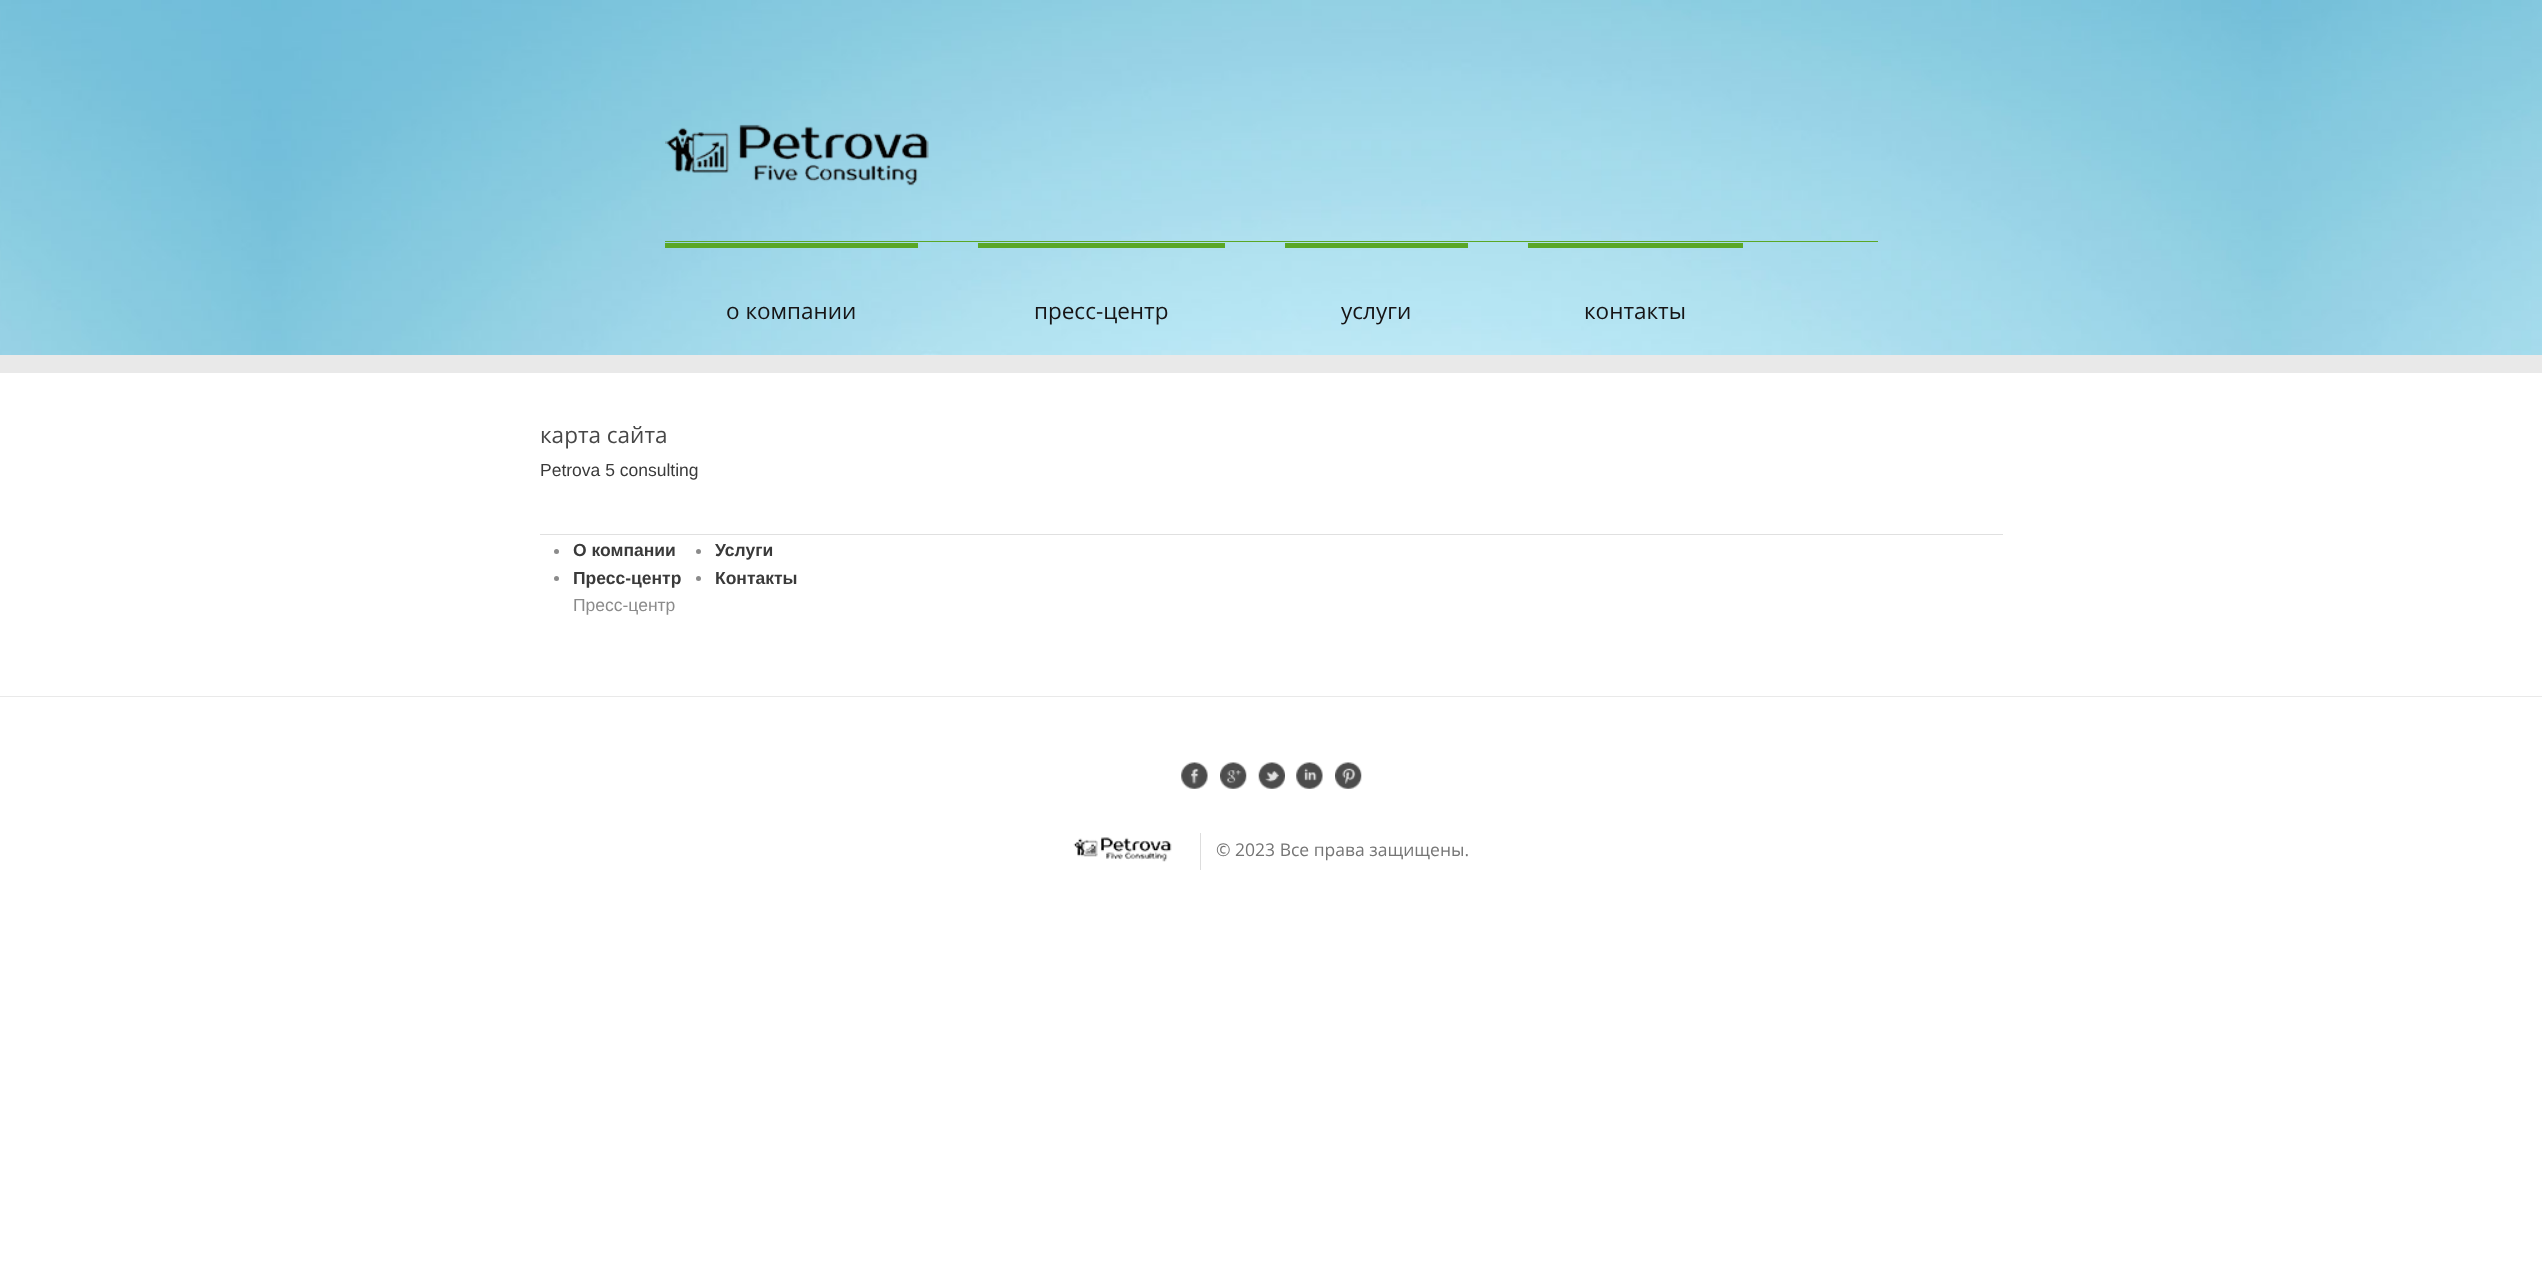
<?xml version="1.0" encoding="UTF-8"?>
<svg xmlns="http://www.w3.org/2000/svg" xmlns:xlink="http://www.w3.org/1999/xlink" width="2542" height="1268">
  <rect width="100%" height="100%" fill="#ffffff" />
  <image x="0" y="0" width="2542" height="355" xlink:href="image1.png" />
  <rect y="355" width="2542" height="18" fill="#e9e9e9" />
  <image x="665" y="124" width="264" height="62" xlink:href="image2.png" />
  <rect x="665" y="241" width="1213" height="1" fill="#5aa726" />
  <rect x="665" y="243" width="253" height="5" fill="#5aa726" />
  <rect x="978" y="243" width="247" height="5" fill="#5aa726" />
  <rect x="1285" y="243" width="183" height="5" fill="#5aa726" />
  <rect x="1528" y="243" width="215" height="5" fill="#5aa726" />
  <rect x="540" y="534" width="1463" height="1" fill="#e0e0e0" />
  <circle cx="556.5" cy="551.5" r="2.5" fill="#8b8b8b" />
  <circle cx="556.5" cy="578.5" r="2.5" fill="#8b8b8b" />
  <circle cx="698.5" cy="551.5" r="2.5" fill="#8b8b8b" />
  <circle cx="698.5" cy="578.5" r="2.5" fill="#8b8b8b" />
  <rect y="696" width="2542" height="1" fill="#e9e9e9" />
  <image x="1181" y="762" width="27" height="27" xlink:href="image3.png" />
  <image x="1220" y="762" width="27" height="27" xlink:href="image4.png" />
  <image x="1258" y="762" width="27" height="27" xlink:href="image5.png" />
  <image x="1296" y="762" width="27" height="27" xlink:href="image6.png" />
  <image x="1335" y="762" width="27" height="27" xlink:href="image7.png" />
  <image x="1073" y="837" width="99" height="25" xlink:href="image8.png" />
  <rect x="1200" y="833" width="1" height="37" fill="#dddddd" />
  <text x="726" y="319" style="font-family: Open Sans; font-size: 22.5px; fill: #161415">о компании</text>
  <text x="1034" y="319" style="font-family: Open Sans; font-size: 22.5px; fill: #161415">пресс-центр</text>
  <text x="1341" y="319" style="font-family: Open Sans; font-size: 22.5px; fill: #161415">услуги</text>
  <text x="1584" y="319" style="font-family: Open Sans; font-size: 22.5px; fill: #161415">контакты</text>
  <text x="540" y="443" style="font-family: Open Sans; font-size: 22.5px; fill: #474747">карта сайта</text>
  <text x="540" y="476" style="font-family: Liberation Sans; font-size: 17.5px; fill: #3a3a3a">Petrova 5 consulting</text>
  <text x="573" y="556" style="font-family: Liberation Sans; font-size: 17.5px; font-weight: bold; fill: #3a3a3a">О компании</text>
  <text x="573" y="584" style="font-family: Liberation Sans; font-size: 17.5px; font-weight: bold; fill: #3a3a3a">Пресс-центр</text>
  <text x="573" y="611" style="font-family: Liberation Sans; font-size: 17.5px; fill: #8b8b8b">Пресс-центр</text>
  <text x="715" y="556" style="font-family: Liberation Sans; font-size: 17.5px; font-weight: bold; fill: #3a3a3a">Услуги</text>
  <text x="715" y="584" style="font-family: Liberation Sans; font-size: 17.5px; font-weight: bold; fill: #3a3a3a">Контакты</text>
  <text x="1216" y="856" style="font-family: Open Sans; font-size: 17.5px; fill: #757575">© 2023 Все права защищены.</text>
</svg>
